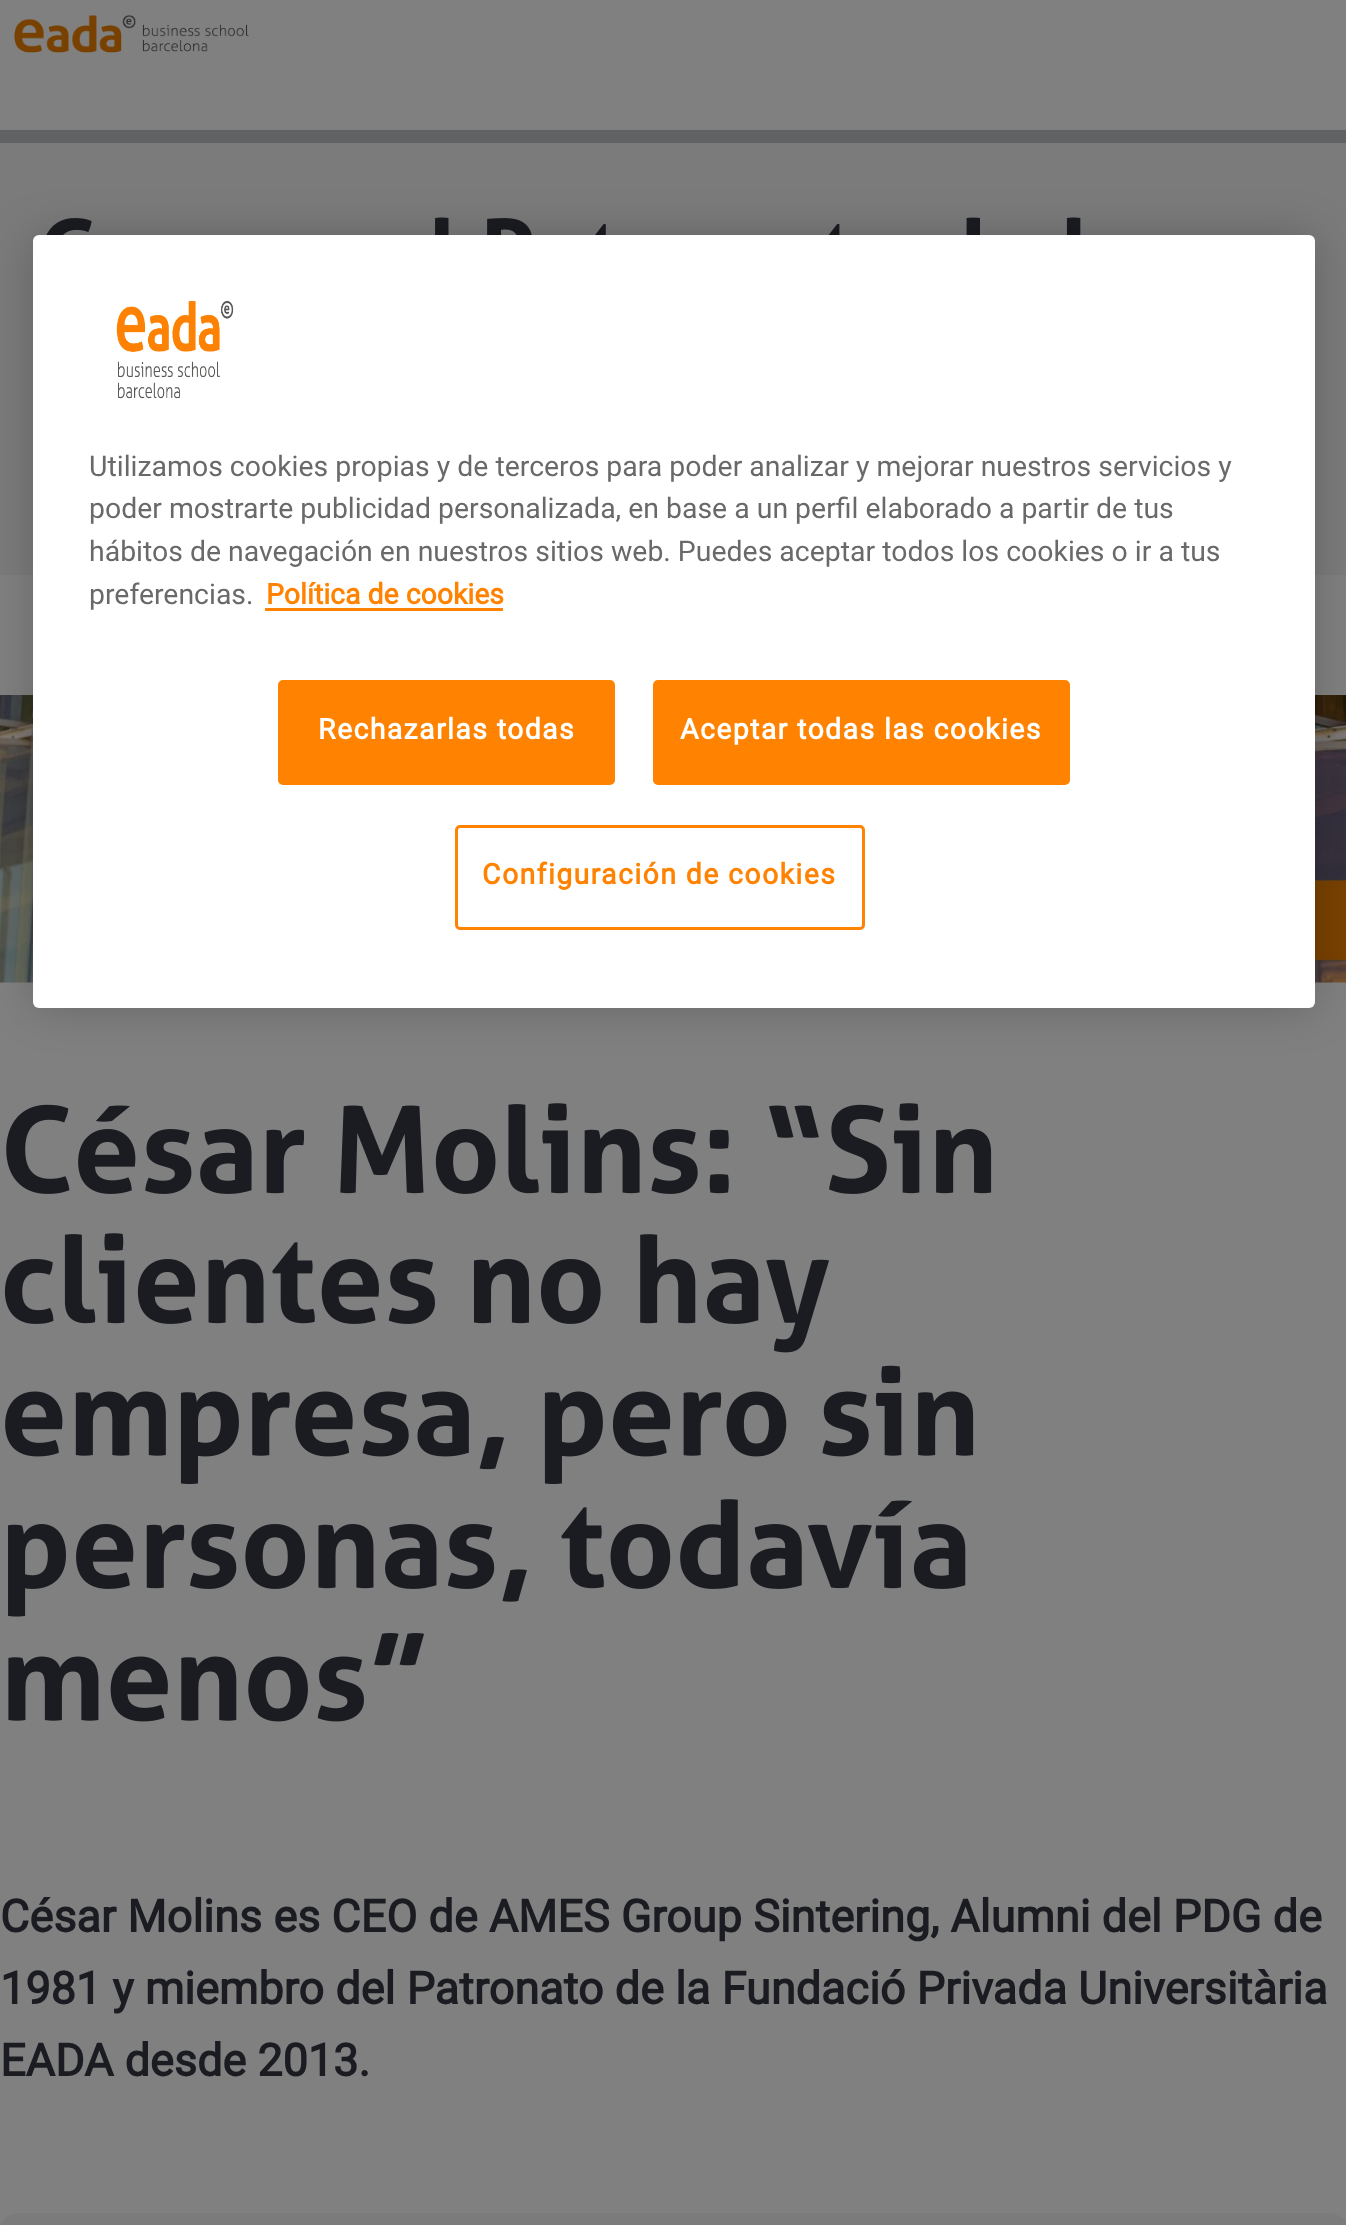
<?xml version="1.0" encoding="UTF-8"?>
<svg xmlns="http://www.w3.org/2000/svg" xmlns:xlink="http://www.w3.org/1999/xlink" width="1346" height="2225">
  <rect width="100%" height="100%" fill="#808080" />
  <rect y="130" width="1346" height="13" fill="#616263" />
  <image x="14" y="15" width="235" height="38" xlink:href="image1.png" />
  <rect y="143" width="1346" height="432" fill="#7b7b7b" />
  <image x="46" y="217" width="1035" height="18" xlink:href="image2.png" />
  <image x="0" y="695" width="1346" height="288" xlink:href="image4.png" />
  <rect x="33" y="235" width="1282" height="773" rx="6" fill="#000000" fill-opacity="0.2" filter="blur(22.5px)" />
  <rect x="33" y="235" width="1282" height="773" rx="6" fill="#ffffff" />
  <image x="116" y="300" width="118" height="99" xlink:href="image3.png" />
  <rect x="265" y="608" width="238" height="3" fill="#ff8300" />
  <rect x="279.5" y="681.5" width="334" height="102" rx="3.5" fill="#ff8300" stroke="#ff8300" stroke-width="3" />
  <rect x="654.5" y="681.5" width="414" height="102" rx="3.5" fill="#ff8300" stroke="#ff8300" stroke-width="3" />
  <rect x="456.5" y="826.5" width="407" height="102" rx="3.5" fill="none" stroke="#ff8300" stroke-width="3" />
  <image x="6" y="1103" width="986" height="91" xlink:href="image5.png" />
  <image x="4" y="1233" width="825" height="120" xlink:href="image6.png" />
  <image x="5" y="1365" width="969" height="120" xlink:href="image7.png" />
  <image x="8" y="1499" width="958" height="118" xlink:href="image8.png" />
  <image x="8" y="1633" width="416" height="89" xlink:href="image9.png" />
  <rect y="2213" width="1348" height="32" rx="20" fill="#7b7b7b" />
  <text x="89" y="476" style="font-family: Roboto; font-size: 28.45px; fill: #696969">Utilizamos cookies propias y de terceros para poder analizar y mejorar nuestros servicios y</text>
  <text x="89" y="518" style="font-family: Roboto; font-size: 28.45px; fill: #696969">poder mostrarte publicidad personalizada, en base a un perfil elaborado a partir de tus</text>
  <text x="89" y="561" style="font-family: Roboto; font-size: 28.45px; fill: #696969">hábitos de navegación en nuestros sitios web. Puedes aceptar todos los cookies o ir a tus</text>
  <text x="89" y="604" style="font-family: Roboto; font-size: 28.45px; fill: #696969">preferencias.</text>
  <text x="266" y="604" style="font-family: Roboto; font-size: 28.45px; font-weight: bold; fill: #ff8300">Política de cookies</text>
  <text x="318" y="739" style="font-family: Roboto; font-size: 28.45px; font-weight: bold; letter-spacing: 1.4px; fill: #ffffff">Rechazarlas todas</text>
  <text x="680" y="739" style="font-family: Roboto; font-size: 28.45px; font-weight: bold; letter-spacing: 1.4px; fill: #ffffff">Aceptar todas las cookies</text>
  <text x="482" y="884" style="font-family: Roboto; font-size: 28.45px; font-weight: bold; letter-spacing: 1.4px; fill: #ff8300">Configuración de cookies</text>
  <text x="0" y="1932" style="font-family: Roboto; font-size: 45px; font-weight: bold; fill: #1b1c21">César Molins es CEO de AMES Group Sintering, Alumni del PDG de</text>
  <text x="0" y="2004" style="font-family: Roboto; font-size: 45px; font-weight: bold; fill: #1b1c21">1981 y miembro del Patronato de la Fundació Privada Universitària</text>
  <text x="0" y="2076" style="font-family: Roboto; font-size: 45px; font-weight: bold; fill: #1b1c21">EADA desde 2013.</text>
</svg>
